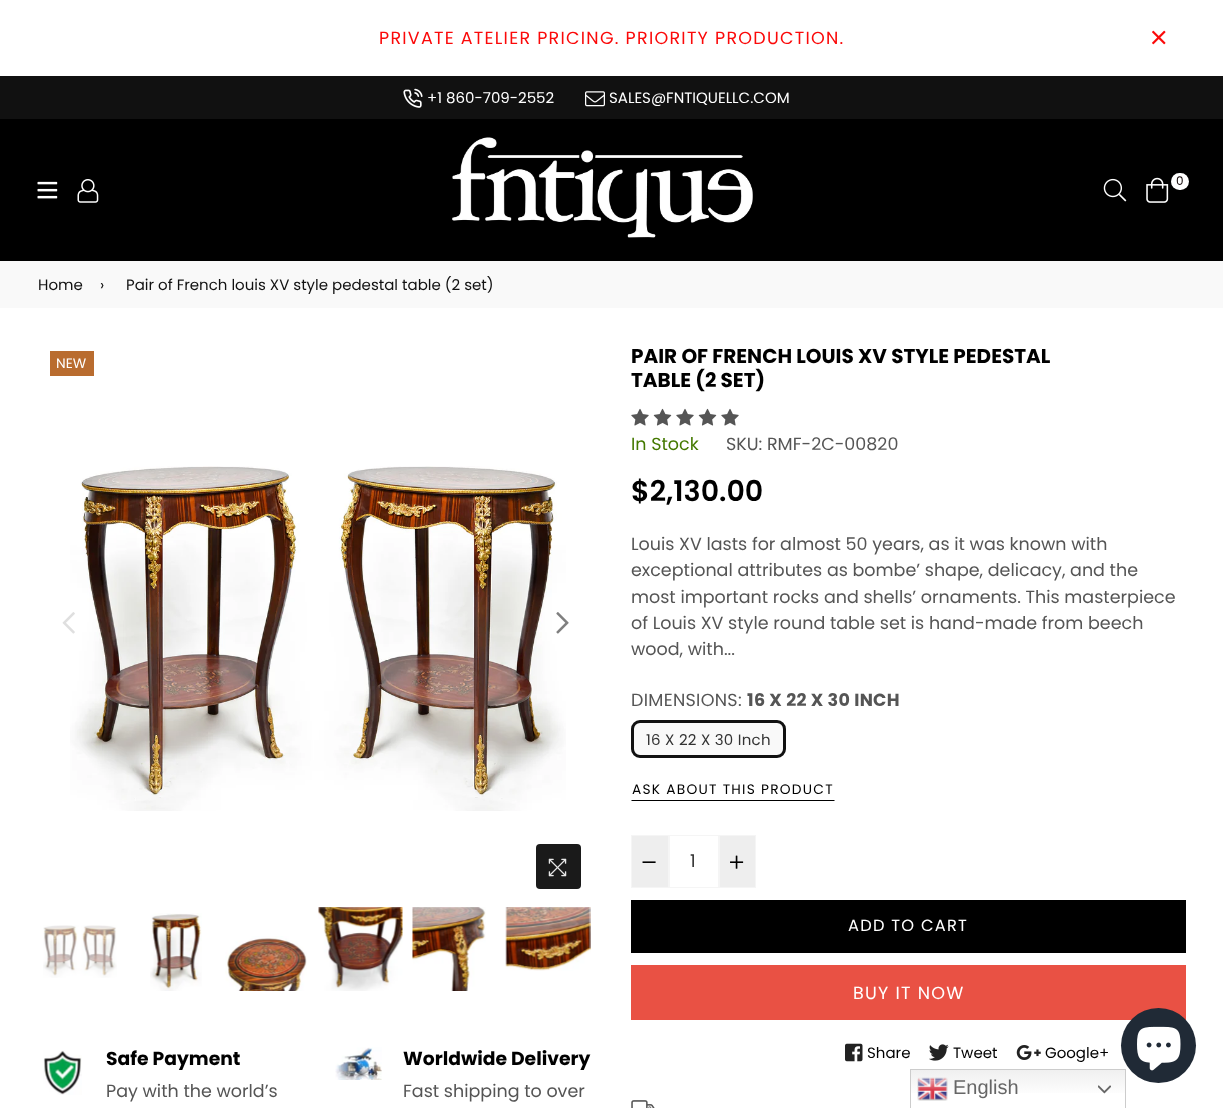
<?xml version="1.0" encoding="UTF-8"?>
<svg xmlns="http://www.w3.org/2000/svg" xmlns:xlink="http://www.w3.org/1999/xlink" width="1223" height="1108">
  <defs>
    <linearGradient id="g1" gradientUnits="userSpaceOnUse" x1="1018" y1="1069" x2="1018" y2="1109"><stop offset="0" stop-color="#efefef" /><stop offset="0.7" stop-color="#ffffff" /></linearGradient>
  </defs>
  <rect width="100%" height="100%" fill="#ffffff" />
  <image x="1152" y="30" width="14" height="15" xlink:href="image1.png" />
  <rect y="76" width="1223" height="43" fill="#111111" />
  <image x="403" y="88" width="20" height="20" xlink:href="image2.png" />
  <image x="585" y="91" width="20" height="16" xlink:href="image3.png" />
  <rect y="119" width="1223" height="142" fill="#000000" />
  <image x="37" y="181" width="21" height="18" xlink:href="image4.png" />
  <image x="77" y="179" width="22" height="24" xlink:href="image5.png" />
  <image x="452" y="137" width="301" height="101" xlink:href="image6.png" />
  <image x="1103" y="178" width="24" height="24" xlink:href="image7.png" />
  <image x="1146" y="177" width="23" height="26" xlink:href="image8.png" />
  <rect x="1171" y="173" width="18" height="17" rx="8.5" fill="#ffffff" />
  <rect y="261" width="1223" height="47" fill="#f9f9f9" />
  <rect x="50" y="351" width="44" height="25" fill="#b96c2f" />
  <image x="70" y="466" width="496" height="345" xlink:href="image10.png" />
  <image x="62" y="612" width="13" height="22" xlink:href="image9.png" />
  <image x="556" y="612" width="13" height="22" xlink:href="image11.png" />
  <rect x="536" y="844" width="45" height="45" rx="4" fill="#1a1a1a" />
  <image x="548" y="858" width="19" height="19" xlink:href="image12.png" />
  <image x="43" y="925" width="74" height="53" xlink:href="image13.png" />
  <image x="150" y="913" width="52" height="78" xlink:href="image14.png" />
  <image x="225" y="936" width="82" height="55" xlink:href="image15.png" />
  <image x="318" y="907" width="85" height="84" xlink:href="image16.png" />
  <image x="412" y="907" width="74" height="84" xlink:href="image17.png" />
  <image x="505" y="907" width="86" height="64" xlink:href="image18.png" />
  <image x="631" y="408" width="18" height="18" xlink:href="image19.png" />
  <image x="653" y="408" width="19" height="18" xlink:href="image20.png" />
  <image x="676" y="408" width="18" height="18" xlink:href="image19.png" />
  <image x="698" y="408" width="19" height="18" xlink:href="image20.png" />
  <image x="721" y="408" width="18" height="18" xlink:href="image19.png" />
  <rect x="632.5" y="721.5" width="152" height="35" rx="7.5" fill="#f9f9f9" stroke="#111111" stroke-width="3" />
  <path d="M 835 801 h -204 l 1 -1 h 202 z" fill="#000000" />
  <rect x="631.5" y="835.5" width="37" height="52" fill="#eeeeee" stroke="#f5f5f5" />
  <image x="642" y="861" width="14" height="2" xlink:href="image21.png" />
  <rect x="669.5" y="835.5" width="49" height="52" fill="none" stroke="#f5f5f5" />
  <rect x="719.5" y="835.5" width="36" height="52" fill="#eeeeee" stroke="#f5f5f5" />
  <image x="730" y="855" width="14" height="14" xlink:href="image22.png" />
  <rect x="631" y="900" width="555" height="53" fill="#000000" />
  <rect x="631" y="965" width="555" height="55" fill="#e95144" />
  <image x="845" y="1043" width="18" height="19" xlink:href="image23.png" />
  <image x="929" y="1044" width="20" height="17" xlink:href="image24.png" />
  <image x="1016" y="1045" width="25" height="15" xlink:href="image25.png" />
  <image x="631" y="1100" width="24" height="8" xlink:href="image26.png" />
  <image x="43" y="1050" width="39" height="45" xlink:href="image27.png" />
  <image x="335" y="1047" width="47" height="33" xlink:href="image28.png" />
  <rect x="911" y="1070" width="214" height="23" fill="url(#g1)" />
  <rect x="910.5" y="1069.5" width="215" height="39" fill="none" stroke="#cccccc" />
  <circle cx="1158.5" cy="1045.5" r="37.5" fill="#202a36" />
  <image x="1137" y="1026" width="44" height="45" xlink:href="image29.png" />
  <image x="917" y="1077" width="31" height="24" xlink:href="image30.png" />
  <image x="1098" y="1085" width="13" height="9" xlink:href="image31.png" />
  <text x="379" y="44" style="font-family: Poppins; font-size: 17.5px; letter-spacing: 1.25px; fill: #fb0909">PRIVATE ATELIER PRICING. PRIORITY PRODUCTION.</text>
  <text x="427" y="103" style="font-family: Poppins; font-size: 15px; fill: #ffffff">+1 860-709-2552</text>
  <text x="609" y="103" style="font-family: Poppins; font-size: 15px; fill: #ffffff">SALES@FNTIQUELLC.COM</text>
  <text x="1176" y="185" style="font-family: Poppins; font-size: 12px; fill: #0c0101">0</text>
  <text x="38" y="290" style="font-family: Poppins; font-size: 15px; fill: #111111">Home</text>
  <text x="100" y="290" style="font-family: Poppins; font-size: 15px; fill: #111111">›</text>
  <text x="126" y="290" style="font-family: Poppins; font-size: 15px; fill: #111111">Pair of French louis XV style pedestal table (2 set)</text>
  <text x="56" y="368" style="font-family: Poppins; font-size: 13.75px; fill: #ffffff">NEW</text>
  <text x="631" y="363" style="font-family: Poppins; font-size: 20px; font-weight: bold; fill: #000000">PAIR OF FRENCH LOUIS XV STYLE PEDESTAL</text>
  <text x="631" y="387" style="font-family: Poppins; font-size: 20px; font-weight: bold; fill: #000000">TABLE (2 SET)</text>
  <text x="631" y="450" style="font-family: Poppins; font-size: 17.5px; fill: #447900">In Stock</text>
  <text x="726" y="450" style="font-family: Poppins; font-size: 17.5px; fill: #555555">SKU: RMF-2C-00820</text>
  <text x="631" y="501" style="font-family: Poppins; font-size: 28.5px; font-weight: 600; fill: #000000">$2,130.00</text>
  <text x="631" y="550" style="font-family: Poppins; font-size: 17.5px; fill: #555555">Louis XV lasts for almost 50 years, as it was known with</text>
  <text x="631" y="576" style="font-family: Poppins; font-size: 17.5px; fill: #555555">exceptional attributes as bombe’ shape, delicacy, and the</text>
  <text x="631" y="603" style="font-family: Poppins; font-size: 17.5px; fill: #555555">most important rocks and shells’ ornaments. This masterpiece</text>
  <text x="631" y="629" style="font-family: Poppins; font-size: 17.5px; fill: #555555">of Louis XV style round table set is hand-made from beech</text>
  <text x="631" y="655" style="font-family: Poppins; font-size: 17.5px; fill: #555555">wood, with...</text>
  <text x="631" y="706" style="font-family: Poppins; font-size: 17.5px; letter-spacing: 0.3px; fill: #555555">DIMENSIONS:</text>
  <text x="747" y="706" style="font-family: Poppins; font-size: 17.5px; font-weight: bold; letter-spacing: 0.3px; fill: #555555">16 X 22 X 30 INCH</text>
  <text x="646" y="745" style="font-family: Poppins; font-size: 15px; letter-spacing: 0.25px; fill: #333333">16 X 22 X 30 Inch</text>
  <text x="632" y="794" style="font-family: Poppins; font-size: 13.75px; letter-spacing: 1.25px; fill: #000000">ASK ABOUT THIS PRODUCT</text>
  <text x="690" y="867" style="font-family: Poppins; font-size: 17.5px; fill: #333333">1</text>
  <text x="848" y="931" style="font-family: Poppins; font-size: 16.25px; letter-spacing: 1.25px; fill: #ffffff">ADD TO CART</text>
  <text x="853" y="999" style="font-family: Poppins; font-size: 17.5px; letter-spacing: 1.25px; fill: #ffffff">BUY IT NOW</text>
  <text x="867" y="1058" style="font-family: Poppins; font-size: 15px; fill: #000000">Share</text>
  <text x="953" y="1058" style="font-family: Poppins; font-size: 15px; fill: #000000">Tweet</text>
  <text x="1045" y="1058" style="font-family: Poppins; font-size: 15px; fill: #000000">Google+</text>
  <text x="106" y="1065" style="font-family: Poppins; font-size: 18.75px; font-weight: bold; fill: #000000">Safe Payment</text>
  <text x="106" y="1097" style="font-family: Poppins; font-size: 17.5px; fill: #555555">Pay with the world’s</text>
  <text x="403" y="1065" style="font-family: Poppins; font-size: 18.75px; font-weight: bold; fill: #000000">Worldwide Delivery</text>
  <text x="403" y="1097" style="font-family: Poppins; font-size: 17.5px; fill: #555555">Fast shipping to over</text>
  <text x="953" y="1094" style="font-family: Liberation Sans; font-size: 20px; fill: #666666">English</text>
</svg>
